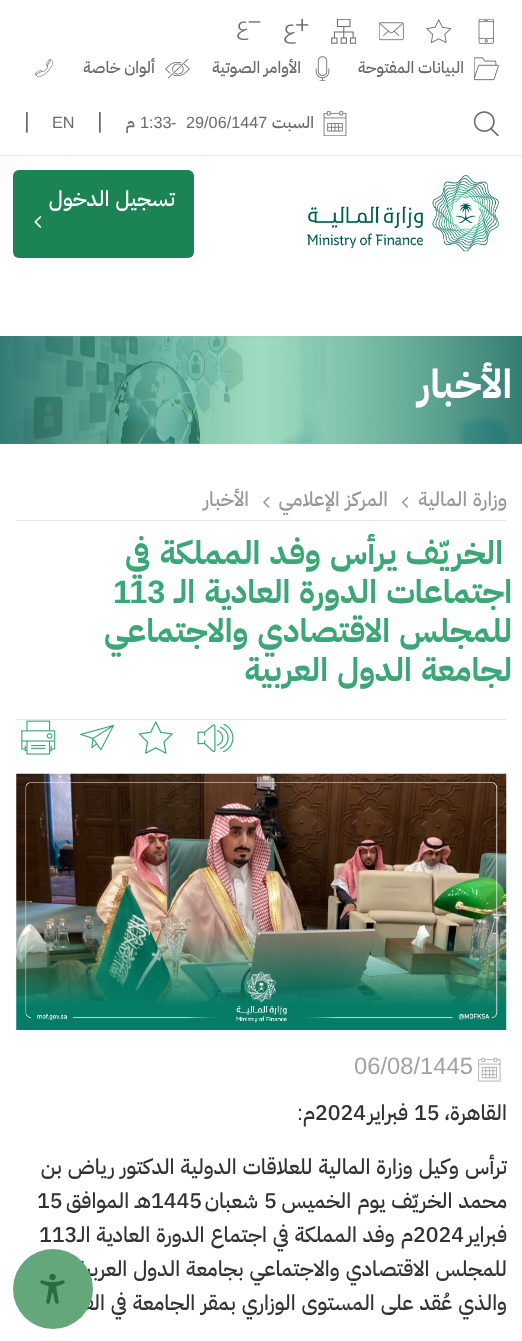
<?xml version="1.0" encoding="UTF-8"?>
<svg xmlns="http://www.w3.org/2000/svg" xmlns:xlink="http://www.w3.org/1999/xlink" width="522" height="1341">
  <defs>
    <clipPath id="clip1"><rect x="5" y="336" width="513" height="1" /></clipPath>
    <linearGradient id="g1" gradientUnits="userSpaceOnUse" x1="0" y1="390" x2="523" y2="390"><stop offset="0" stop-color="#005b51" stop-opacity="0.8" /><stop offset="0.5" stop-color="#42b983" stop-opacity="0.5" /><stop offset="1" stop-color="#005b51" stop-opacity="0.8" /></linearGradient>
    <clipPath id="clip2"><rect x="21" y="534" width="490" height="156" /></clipPath>
  </defs>
  <rect width="100%" height="100%" fill="#ffffff" />
  <image x="478" y="19" width="16" height="25" xlink:href="image1.png" />
  <image x="426" y="19" width="25" height="25" xlink:href="image2.png" />
  <image x="379" y="22" width="25" height="19" xlink:href="image3.png" />
  <image x="331" y="19" width="25" height="25" xlink:href="image4.png" />
  <image x="284" y="19" width="25" height="25" xlink:href="image5.png" />
  <image x="237" y="21" width="24" height="19" xlink:href="image6.png" />
  <image x="474" y="57" width="25" height="24" xlink:href="image7.png" />
  <image x="315" y="56" width="15" height="25" xlink:href="image8.png" />
  <image x="165" y="59" width="25" height="20" xlink:href="image9.png" />
  <image x="35" y="59" width="18" height="18" xlink:href="image10.png" />
  <image x="474" y="111" width="25" height="25" xlink:href="image11.png" />
  <image x="323" y="111" width="24" height="25" xlink:href="image12.png" />
  <g clip-path="url(#clip1)">
    <rect x="10" y="184" width="503" height="161" fill="#000000" fill-opacity="0.1" filter="blur(12.5px)" />
  </g>
  <image x="0" y="156" width="102" height="26" xlink:href="image13.png" />
  <rect y="155" width="522" height="1" fill="#e7e7e7" />
  <image x="307" y="175" width="192" height="77" xlink:href="image14.png" />
  <rect x="13" y="170" width="181" height="88" rx="6" fill="#1b8354" />
  <image x="34" y="216" width="8" height="12" xlink:href="image15.png" />
  <image x="0" y="336" width="522" height="108" xlink:href="image16.png" />
  <rect y="336" width="522" height="108" fill="url(#g1)" />
  <rect x="16" y="520" width="490" height="1" fill="#e6e6e6" />
  <image x="401" y="496" width="8" height="12" xlink:href="image17.png" />
  <image x="263" y="496" width="7" height="12" xlink:href="image18.png" />
  <rect x="16" y="719" width="490" height="1" fill="#e6e6e6" />
  <image x="197" y="723" width="37" height="30" xlink:href="image19.png" />
  <image x="138" y="721" width="35" height="33" xlink:href="image20.png" />
  <image x="80" y="724" width="34" height="27" xlink:href="image21.png" />
  <image x="21" y="720" width="35" height="35" xlink:href="image22.png" />
  <image x="16" y="773" width="491" height="257" xlink:href="image23.png" />
  <image x="478" y="1057" width="23" height="25" xlink:href="image24.png" />
  <text x="464" y="73" style="font-family: IBM Plex Sans Arabic; font-size: 16.25px; font-weight: 500; direction: rtl; fill: #6a6a6a">البيانات المفتوحة</text>
  <text x="301" y="73" style="font-family: IBM Plex Sans Arabic; font-size: 16.25px; font-weight: 500; direction: rtl; fill: #6a6a6a">الأوامر الصوتية</text>
  <text x="155" y="73" style="font-family: IBM Plex Sans Arabic; font-size: 16.25px; font-weight: 500; direction: rtl; fill: #6a6a6a">ألوان خاصة</text>
  <text x="314" y="128" style="font-family: IBM Plex Sans Arabic; font-size: 16.25px; font-weight: 500; direction: rtl; fill: #6a6a6a">السبت</text>
  <text x="186" y="128" style="font-family: Liberation Sans; font-size: 16.25px; fill: #6a6a6a">29/06/1447</text>
  <text x="171" y="128" style="font-family: Liberation Sans; font-size: 16.25px; fill: #6a6a6a">-</text>
  <text x="140" y="128" style="font-family: Liberation Sans; font-size: 16.25px; fill: #6a6a6a">1:33</text>
  <text x="135" y="128" style="font-family: IBM Plex Sans Arabic; font-size: 16.25px; font-weight: 500; direction: rtl; fill: #6a6a6a">م</text>
  <text x="97" y="128" style="font-family: Liberation Sans; font-size: 22px; fill: #6a6a6a">|</text>
  <text x="52" y="128" style="font-family: Liberation Sans; font-size: 16.25px; fill: #6a6a6a">EN</text>
  <text x="24" y="128" style="font-family: Liberation Sans; font-size: 22px; fill: #6a6a6a">|</text>
  <text x="175" y="206" word-spacing="1" style="font-family: IBM Plex Sans Arabic; font-size: 21.25px; font-weight: 500; direction: rtl; fill: #ffffff">تسجيل الدخول</text>
  <text x="512" y="398" style="font-family: IBM Plex Sans Arabic; font-size: 40px; font-weight: bold; direction: rtl; fill: #ffffff">الأخبار</text>
  <text x="507" y="506" word-spacing="1" style="font-family: IBM Plex Sans Arabic; font-size: 20px; font-weight: 500; direction: rtl; fill: #989899">وزارة المالية</text>
  <text x="388" y="506" word-spacing="1" style="font-family: IBM Plex Sans Arabic; font-size: 20px; font-weight: 500; direction: rtl; fill: #989899">المركز الإعلامي</text>
  <text x="249" y="506" style="font-family: IBM Plex Sans Arabic; font-size: 20px; font-weight: 500; direction: rtl; fill: #989899">الأخبار</text>
  <g clip-path="url(#clip2)">
    <text x="503" y="564" word-spacing="1.5" style="font-family: IBM Plex Sans Arabic; font-size: 32.5px; font-weight: bold; direction: rtl; fill: #3ca776">الخريّف يرأس وفد المملكة في</text>
  </g>
  <text x="512" y="603" word-spacing="1.5" style="font-family: IBM Plex Sans Arabic; font-size: 32.5px; font-weight: bold; direction: rtl; fill: #3ca776">اجتماعات الدورة العادية الـ</text>
  <text x="113" y="603" style="font-family: Liberation Sans; font-size: 32.5px; font-weight: bold; fill: #3ca776">113</text>
  <text x="512" y="642" word-spacing="1.5" style="font-family: IBM Plex Sans Arabic; font-size: 32.5px; font-weight: bold; direction: rtl; fill: #3ca776">للمجلس الاقتصادي والاجتماعي</text>
  <text x="512" y="681" word-spacing="1.5" style="font-family: IBM Plex Sans Arabic; font-size: 32.5px; font-weight: bold; direction: rtl; fill: #3ca776">لجامعة الدول العربية</text>
  <text x="354" y="1074" style="font-family: Liberation Sans; font-size: 23.75px; fill: #a2a2a2">06/08/1445</text>
  <text x="507" y="1120" style="font-family: IBM Plex Sans Arabic; font-size: 21.25px; font-weight: 500; direction: rtl; fill: #323232">ا</text>
  <text x="502" y="1120" style="font-family: IBM Plex Sans Arabic; font-size: 21.25px; font-weight: 500; direction: rtl; fill: #323232">لقاهرة،</text>
  <text x="414" y="1120" style="font-family: IBM Plex Sans Arabic; font-size: 21.25px; font-weight: 500; fill: #323232">15</text>
  <text x="408" y="1120" style="font-family: IBM Plex Sans Arabic; font-size: 21.25px; font-weight: 500; direction: rtl; fill: #323232">فبراير</text>
  <text x="315" y="1120" style="font-family: IBM Plex Sans Arabic; font-size: 21.25px; font-weight: 500; fill: #323232">2024</text>
  <text x="315" y="1120" style="font-family: IBM Plex Sans Arabic; font-size: 21.25px; font-weight: 500; direction: rtl; fill: #323232">م</text>
  <text x="297" y="1120" style="font-family: Liberation Sans; font-size: 21.25px; fill: #323232">:</text>
  <text x="507" y="1174" word-spacing="1" style="font-family: IBM Plex Sans Arabic; font-size: 21.25px; font-weight: 500; direction: rtl; fill: #323232">ترأس وكيل وزارة المالية للعلاقات الدولية الدكتور رياض بن</text>
  <text x="507" y="1208" word-spacing="1" style="font-family: IBM Plex Sans Arabic; font-size: 21.25px; font-weight: 500; direction: rtl; fill: #323232">محمد الخريّف يوم الخميس</text>
  <text x="264" y="1208" style="font-family: IBM Plex Sans Arabic; font-size: 21.25px; font-weight: 500; fill: #323232">5</text>
  <text x="258" y="1208" style="font-family: IBM Plex Sans Arabic; font-size: 21.25px; font-weight: 500; direction: rtl; fill: #323232">شعبان</text>
  <text x="151" y="1208" style="font-family: IBM Plex Sans Arabic; font-size: 21.25px; font-weight: 500; fill: #323232">1445</text>
  <text x="151" y="1208" word-spacing="1" style="font-family: IBM Plex Sans Arabic; font-size: 21.25px; font-weight: 500; direction: rtl; fill: #323232">هـ الموافق</text>
  <text x="37" y="1208" style="font-family: IBM Plex Sans Arabic; font-size: 21.25px; font-weight: 500; fill: #323232">15</text>
  <text x="507" y="1242" style="font-family: IBM Plex Sans Arabic; font-size: 21.25px; font-weight: 500; direction: rtl; fill: #323232">فبراير</text>
  <text x="413" y="1242" style="font-family: IBM Plex Sans Arabic; font-size: 21.25px; font-weight: 500; fill: #323232">2024</text>
  <text x="413" y="1242" word-spacing="1" style="font-family: IBM Plex Sans Arabic; font-size: 21.25px; font-weight: 500; direction: rtl; fill: #323232">م وفد المملكة في اجتماع الدورة العادية الـ</text>
  <text x="39" y="1242" style="font-family: IBM Plex Sans Arabic; font-size: 21.25px; font-weight: 500; fill: #323232">113</text>
  <text x="507" y="1276" word-spacing="1" style="font-family: IBM Plex Sans Arabic; font-size: 21.25px; font-weight: 500; direction: rtl; fill: #323232">للمجلس الاقتصادي والاجتماعي بجامعة الدول العربية،</text>
  <text x="507" y="1310" word-spacing="1" style="font-family: IBM Plex Sans Arabic; font-size: 21.25px; font-weight: 500; direction: rtl; fill: #323232">والذي عُقد على المستوى الوزاري بمقر الجامعة في القاهرة،</text>
  <circle cx="53" cy="1289" r="40" fill="#63a77b" />
  <image x="40" y="1274" width="25" height="30" xlink:href="image25.png" />
</svg>
